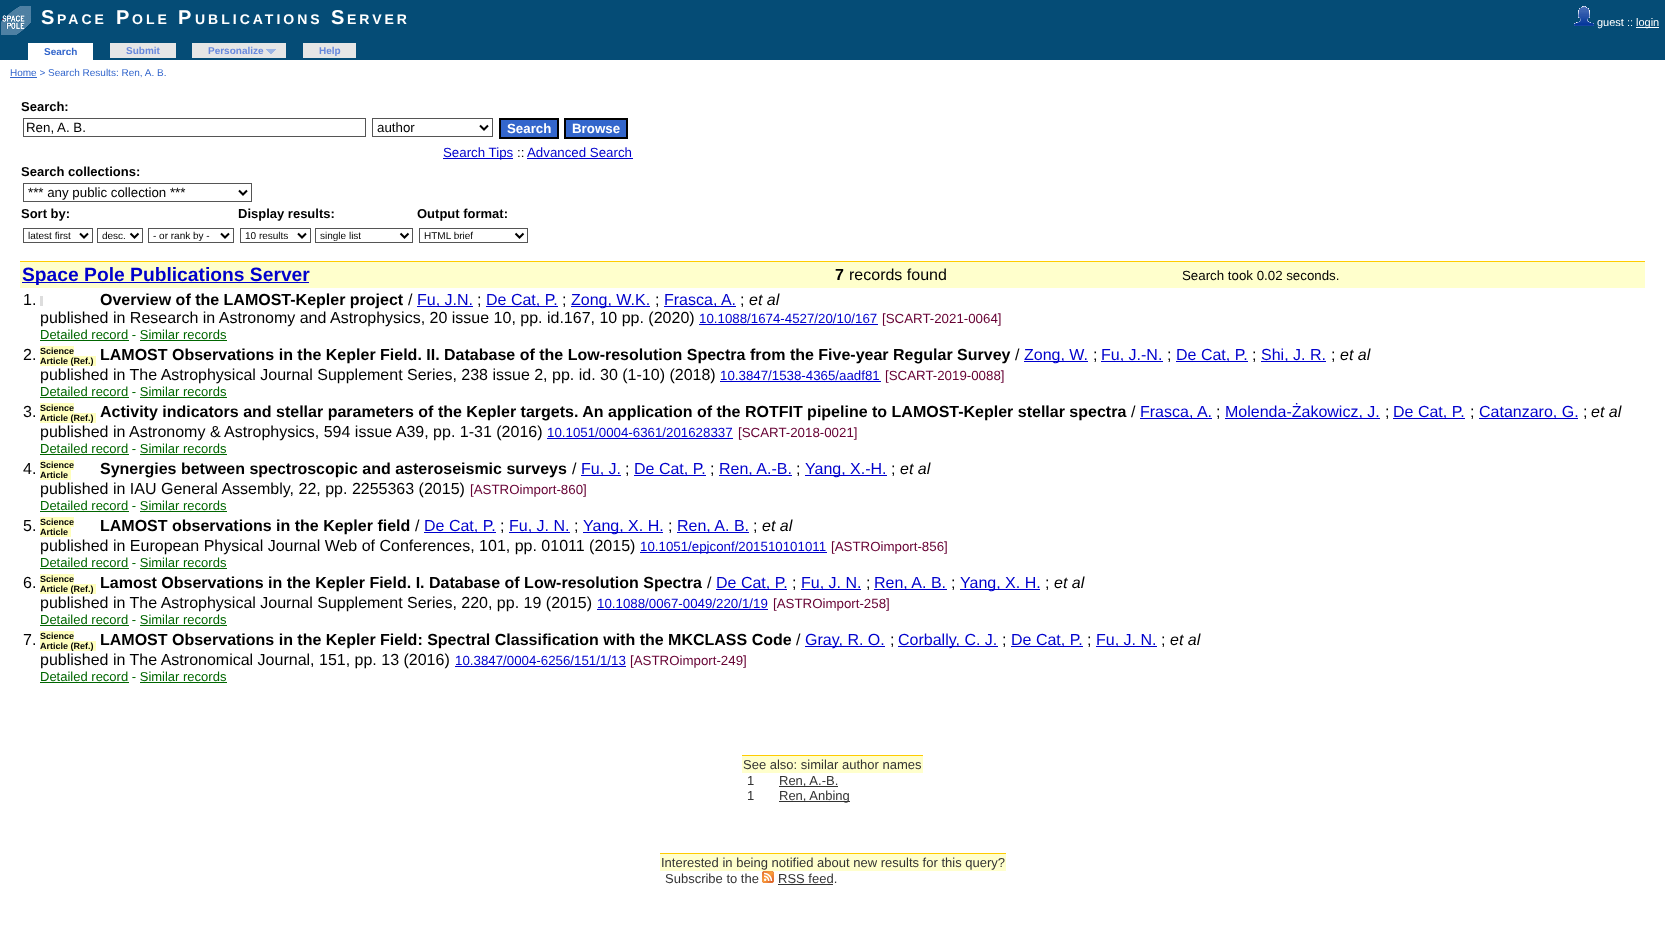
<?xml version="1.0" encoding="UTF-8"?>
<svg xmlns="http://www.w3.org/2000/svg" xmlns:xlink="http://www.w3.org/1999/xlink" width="1665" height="949">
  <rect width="100%" height="100%" fill="#ffffff" />
  <rect width="1665" height="60" fill="#054c76" />
  <image x="1" y="6" width="30" height="29" xlink:href="image1.png" />
  <image x="1574" y="6" width="20" height="20" xlink:href="image2.png" />
  <rect x="1636" y="27" width="23" height="1" fill="#ffffff" />
  <rect x="28" y="43" width="65" height="17" fill="#ffffff" />
  <rect x="110" y="43" width="66" height="15" fill="#e6e6e6" />
  <rect x="192" y="43" width="94" height="15" fill="#e6e6e6" />
  <image x="266" y="49" width="10" height="5" xlink:href="image3.png" />
  <rect x="303" y="43" width="53" height="15" fill="#e6e6e6" />
  <rect x="10" y="77" width="27" height="1" fill="#3366cc" />
  <rect x="23.5" y="118.5" width="342" height="18" fill="none" stroke="#555555" />
  <rect x="372.5" y="118.5" width="120" height="18" fill="none" stroke="#555555" />
  <path d="M 480 125.5 l 4 4 l 4 -4" fill="none" stroke="#000000" stroke-width="2" />
  <rect x="500" y="119" width="58" height="19" fill="#3366cc" stroke="#000000" stroke-width="2" />
  <rect x="565" y="119" width="62" height="19" fill="#3366cc" stroke="#000000" stroke-width="2" />
  <rect x="443" y="158" width="70" height="1" fill="#0000cc" />
  <rect x="527" y="158" width="106" height="1" fill="#0000cc" />
  <rect x="23.5" y="183.5" width="228" height="18" fill="none" stroke="#555555" />
  <path d="M 239 190.5 l 4 4 l 4 -4" fill="none" stroke="#000000" stroke-width="2" />
  <rect x="23.5" y="228.5" width="69" height="14" fill="none" stroke="#555555" />
  <path d="M 80 233.5 l 4 4 l 4 -4" fill="none" stroke="#000000" stroke-width="2" />
  <rect x="97.5" y="228.5" width="45" height="14" fill="none" stroke="#555555" />
  <path d="M 130.5 233.5 l 4 4 l 4 -4" fill="none" stroke="#000000" stroke-width="2" />
  <rect x="148.5" y="228.5" width="85" height="14" fill="none" stroke="#555555" />
  <path d="M 221 233.5 l 4 4 l 4 -4" fill="none" stroke="#000000" stroke-width="2" />
  <rect x="240.5" y="228.5" width="70" height="14" fill="none" stroke="#555555" />
  <path d="M 298 233.5 l 4 4 l 4 -4" fill="none" stroke="#000000" stroke-width="2" />
  <rect x="315.5" y="228.5" width="97" height="14" fill="none" stroke="#555555" />
  <path d="M 400.5 233.5 l 4 4 l 4 -4" fill="none" stroke="#000000" stroke-width="2" />
  <rect x="419.5" y="228.5" width="108" height="14" fill="none" stroke="#555555" />
  <path d="M 515.5 233.5 l 4 4 l 4 -4" fill="none" stroke="#000000" stroke-width="2" />
  <rect x="20" y="261" width="1625" height="1" fill="#ffcc00" />
  <rect x="20" y="262" width="1625" height="26" fill="#ffffcc" />
  <rect x="22" y="282" width="287" height="1" fill="#0000cc" />
  <rect x="40" y="296" width="3" height="10" fill="#dddddd" />
  <rect x="417" y="306" width="56" height="1" fill="#0000cc" />
  <rect x="486" y="306" width="72" height="1" fill="#0000cc" />
  <rect x="571" y="306" width="79" height="1" fill="#0000cc" />
  <rect x="664" y="306" width="72" height="1" fill="#0000cc" />
  <rect x="699" y="324" width="179" height="1" fill="#0000cc" />
  <rect x="40" y="340" width="89" height="1" fill="#006600" />
  <rect x="140" y="340" width="87" height="1" fill="#006600" />
  <rect x="40" y="346" width="34" height="10" fill="#ffffbd" />
  <rect x="40" y="356" width="56" height="10" fill="#ffffbd" />
  <rect x="1024" y="361" width="64" height="1" fill="#0000cc" />
  <rect x="1101" y="361" width="62" height="1" fill="#0000cc" />
  <rect x="1176" y="361" width="72" height="1" fill="#0000cc" />
  <rect x="1261" y="361" width="65" height="1" fill="#0000cc" />
  <rect x="720" y="381" width="161" height="1" fill="#0000cc" />
  <rect x="40" y="397" width="89" height="1" fill="#006600" />
  <rect x="140" y="397" width="87" height="1" fill="#006600" />
  <rect x="40" y="403" width="34" height="10" fill="#ffffbd" />
  <rect x="40" y="413" width="56" height="10" fill="#ffffbd" />
  <rect x="1140" y="418" width="72" height="1" fill="#0000cc" />
  <rect x="1225" y="418" width="155" height="1" fill="#0000cc" />
  <rect x="1393" y="418" width="72" height="1" fill="#0000cc" />
  <rect x="1479" y="418" width="99" height="1" fill="#0000cc" />
  <rect x="547" y="438" width="186" height="1" fill="#0000cc" />
  <rect x="40" y="454" width="89" height="1" fill="#006600" />
  <rect x="140" y="454" width="87" height="1" fill="#006600" />
  <rect x="40" y="460" width="34" height="10" fill="#ffffbd" />
  <rect x="40" y="470" width="31" height="10" fill="#ffffbd" />
  <rect x="581" y="475" width="40" height="1" fill="#0000cc" />
  <rect x="634" y="475" width="72" height="1" fill="#0000cc" />
  <rect x="719" y="475" width="73" height="1" fill="#0000cc" />
  <rect x="805" y="475" width="82" height="1" fill="#0000cc" />
  <rect x="40" y="511" width="89" height="1" fill="#006600" />
  <rect x="140" y="511" width="87" height="1" fill="#006600" />
  <rect x="40" y="517" width="34" height="10" fill="#ffffbd" />
  <rect x="40" y="527" width="31" height="10" fill="#ffffbd" />
  <rect x="424" y="532" width="72" height="1" fill="#0000cc" />
  <rect x="509" y="532" width="61" height="1" fill="#0000cc" />
  <rect x="583" y="532" width="80" height="1" fill="#0000cc" />
  <rect x="677" y="532" width="72" height="1" fill="#0000cc" />
  <rect x="640" y="552" width="187" height="1" fill="#0000cc" />
  <rect x="40" y="568" width="89" height="1" fill="#006600" />
  <rect x="140" y="568" width="87" height="1" fill="#006600" />
  <rect x="40" y="574" width="34" height="10" fill="#ffffbd" />
  <rect x="40" y="584" width="56" height="10" fill="#ffffbd" />
  <rect x="716" y="589" width="71" height="1" fill="#0000cc" />
  <rect x="801" y="589" width="60" height="1" fill="#0000cc" />
  <rect x="874" y="589" width="73" height="1" fill="#0000cc" />
  <rect x="960" y="589" width="80" height="1" fill="#0000cc" />
  <rect x="597" y="609" width="171" height="1" fill="#0000cc" />
  <rect x="40" y="625" width="89" height="1" fill="#006600" />
  <rect x="140" y="625" width="87" height="1" fill="#006600" />
  <rect x="40" y="631" width="34" height="10" fill="#ffffbd" />
  <rect x="40" y="641" width="56" height="10" fill="#ffffbd" />
  <rect x="805" y="646" width="80" height="1" fill="#0000cc" />
  <rect x="898" y="646" width="100" height="1" fill="#0000cc" />
  <rect x="1011" y="646" width="72" height="1" fill="#0000cc" />
  <rect x="1096" y="646" width="61" height="1" fill="#0000cc" />
  <rect x="455" y="666" width="171" height="1" fill="#0000cc" />
  <rect x="40" y="682" width="89" height="1" fill="#006600" />
  <rect x="140" y="682" width="87" height="1" fill="#006600" />
  <rect x="742" y="755" width="181" height="1" fill="#ffcc00" />
  <rect x="742" y="756" width="181" height="17" fill="#ffffcc" />
  <rect x="779" y="786" width="59" height="1" fill="#333333" />
  <rect x="779" y="801" width="71" height="1" fill="#333333" />
  <rect x="660" y="853" width="346" height="1" fill="#ffcc00" />
  <rect x="660" y="854" width="346" height="17" fill="#ffffcc" />
  <image x="762" y="871" width="12" height="12" xlink:href="image4.png" />
  <rect x="778" y="884" width="55" height="1" fill="#333333" />
  <text x="41" y="24" style="font-family: Liberation Sans; font-size: 20px; font-weight: bold; letter-spacing: 3px; fill: #ffffff">S</text>
  <text x="57" y="24" style="font-family: Liberation Sans; font-size: 14px; font-weight: bold; letter-spacing: 3px; fill: #ffffff">PACE</text>
  <text x="116" y="24" style="font-family: Liberation Sans; font-size: 20px; font-weight: bold; letter-spacing: 3px; fill: #ffffff">P</text>
  <text x="132" y="24" style="font-family: Liberation Sans; font-size: 14px; font-weight: bold; letter-spacing: 3px; fill: #ffffff">OLE</text>
  <text x="178" y="24" style="font-family: Liberation Sans; font-size: 20px; font-weight: bold; letter-spacing: 3px; fill: #ffffff">P</text>
  <text x="195" y="24" style="font-family: Liberation Sans; font-size: 14px; font-weight: bold; letter-spacing: 3px; fill: #ffffff">UBLICATIONS</text>
  <text x="331" y="24" style="font-family: Liberation Sans; font-size: 20px; font-weight: bold; letter-spacing: 3px; fill: #ffffff">S</text>
  <text x="347" y="24" style="font-family: Liberation Sans; font-size: 14px; font-weight: bold; letter-spacing: 3px; fill: #ffffff">ERVER</text>
  <text x="1597" y="26" style="font-family: Liberation Sans; font-size: 11px; fill: #ffffff">guest ::</text>
  <text x="1636" y="26" style="font-family: Liberation Sans; font-size: 11px; fill: #ffffff">login</text>
  <text x="44" y="55" style="font-family: Liberation Sans; font-size: 10px; font-weight: bold; fill: #3366cc">Search</text>
  <text x="126" y="54" style="font-family: Liberation Sans; font-size: 10px; font-weight: bold; fill: #6688dd">Submit</text>
  <text x="208" y="54" style="font-family: Liberation Sans; font-size: 10px; font-weight: bold; fill: #6688dd">Personalize</text>
  <text x="319" y="54" style="font-family: Liberation Sans; font-size: 10px; font-weight: bold; fill: #6688dd">Help</text>
  <text x="10" y="76" style="font-family: Liberation Sans; font-size: 10px; fill: #3366cc">Home &gt; Search Results: Ren, A. B.</text>
  <text x="21" y="111" style="font-family: Liberation Sans; font-size: 13px; font-weight: bold; fill: #000000">Search:</text>
  <text x="26" y="132" style="font-family: Liberation Sans; font-size: 13.3px; fill: #000000">Ren, A. B.</text>
  <text x="377" y="132" style="font-family: Liberation Sans; font-size: 13.3px; fill: #000000">author</text>
  <text x="507" y="133" style="font-family: Liberation Sans; font-size: 13.3px; font-weight: bold; fill: #ffffff">Search</text>
  <text x="572" y="133" style="font-family: Liberation Sans; font-size: 13.3px; font-weight: bold; fill: #ffffff">Browse</text>
  <text x="443" y="157" style="font-family: Liberation Sans; font-size: 13.3px; fill: #0000cc">Search Tips</text>
  <text x="517" y="157" style="font-family: Liberation Sans; font-size: 13.3px; fill: #000000">::</text>
  <text x="527" y="157" style="font-family: Liberation Sans; font-size: 13.3px; fill: #0000cc">Advanced Search</text>
  <text x="21" y="176" style="font-family: Liberation Sans; font-size: 13px; font-weight: bold; fill: #000000">Search collections:</text>
  <text x="28" y="197" style="font-family: Liberation Sans; font-size: 13.3px; fill: #000000">*** any public collection ***</text>
  <text x="21" y="218" style="font-family: Liberation Sans; font-size: 13px; font-weight: bold; fill: #000000">Sort by:</text>
  <text x="238" y="218" style="font-family: Liberation Sans; font-size: 13px; font-weight: bold; fill: #000000">Display results:</text>
  <text x="417" y="218" style="font-family: Liberation Sans; font-size: 13px; font-weight: bold; fill: #000000">Output format:</text>
  <text x="28" y="239" style="font-family: Liberation Sans; font-size: 10px; fill: #000000">latest first</text>
  <text x="102" y="239" style="font-family: Liberation Sans; font-size: 10px; fill: #000000">desc.</text>
  <text x="153" y="239" style="font-family: Liberation Sans; font-size: 10px; fill: #000000">- or rank by -</text>
  <text x="245" y="239" style="font-family: Liberation Sans; font-size: 10px; fill: #000000">10 results</text>
  <text x="320" y="239" style="font-family: Liberation Sans; font-size: 10px; fill: #000000">single list</text>
  <text x="424" y="239" style="font-family: Liberation Sans; font-size: 10px; fill: #000000">HTML brief</text>
  <text x="22" y="281" style="font-family: Liberation Sans; font-size: 19.25px; font-weight: bold; fill: #0000cc">Space Pole Publications Server</text>
  <text x="835" y="280" style="font-family: Liberation Sans; font-size: 16px; font-weight: bold; fill: #000000">7</text>
  <text x="849" y="280" style="font-family: Liberation Sans; font-size: 16px; fill: #000000">records found</text>
  <text x="1182" y="280" style="font-family: Liberation Sans; font-size: 13.3px; fill: #000000">Search took 0.02 seconds.</text>
  <text x="23" y="305" style="font-family: Liberation Sans; font-size: 16px; fill: #000000">1.</text>
  <text x="100" y="305" style="font-family: Liberation Sans; font-size: 16px; font-weight: bold; fill: #000000">Overview of the LAMOST-Kepler project</text>
  <text x="408" y="305" style="font-family: Liberation Sans; font-size: 16px; fill: #000000">/</text>
  <text x="417" y="305" style="font-family: Liberation Sans; font-size: 16px; fill: #0000cc">Fu, J.N.</text>
  <text x="477" y="305" style="font-family: Liberation Sans; font-size: 16px; fill: #000000">;</text>
  <text x="486" y="305" style="font-family: Liberation Sans; font-size: 16px; fill: #0000cc">De Cat, P.</text>
  <text x="562" y="305" style="font-family: Liberation Sans; font-size: 16px; fill: #000000">;</text>
  <text x="571" y="305" style="font-family: Liberation Sans; font-size: 16px; fill: #0000cc">Zong, W.K.</text>
  <text x="655" y="305" style="font-family: Liberation Sans; font-size: 16px; fill: #000000">;</text>
  <text x="664" y="305" style="font-family: Liberation Sans; font-size: 16px; fill: #0000cc">Frasca, A.</text>
  <text x="740" y="305" style="font-family: Liberation Sans; font-size: 16px; fill: #000000">;</text>
  <text x="749" y="305" style="font-family: Liberation Sans; font-size: 16px; font-style: italic; fill: #000000">et al</text>
  <text x="40" y="323" style="font-family: Liberation Sans; font-size: 16px; fill: #000000">published in Research in Astronomy and Astrophysics, 20 issue 10, pp. id.167, 10 pp. (2020)</text>
  <text x="699" y="323" style="font-family: Liberation Sans; font-size: 13.3px; fill: #0000cc">10.1088/1674-4527/20/10/167</text>
  <text x="882" y="323" style="font-family: Liberation Sans; font-size: 13.3px; fill: #660033">[SCART-2021-0064]</text>
  <text x="40" y="339" style="font-family: Liberation Sans; font-size: 13px; fill: #006600">Detailed record - Similar records</text>
  <text x="23" y="360" style="font-family: Liberation Sans; font-size: 16px; fill: #000000">2.</text>
  <text x="40" y="354" style="font-family: Liberation Sans; font-size: 9px; font-weight: bold; fill: #000000">Science</text>
  <text x="40" y="364" style="font-family: Liberation Sans; font-size: 9px; font-weight: bold; fill: #000000">Article (Ref.)</text>
  <text x="100" y="360" style="font-family: Liberation Sans; font-size: 16px; font-weight: bold; fill: #000000">LAMOST Observations in the Kepler Field. II. Database of the Low-resolution Spectra from the Five-year Regular Survey</text>
  <text x="1015" y="360" style="font-family: Liberation Sans; font-size: 16px; fill: #000000">/</text>
  <text x="1024" y="360" style="font-family: Liberation Sans; font-size: 16px; fill: #0000cc">Zong, W.</text>
  <text x="1093" y="360" style="font-family: Liberation Sans; font-size: 16px; fill: #000000">;</text>
  <text x="1101" y="360" style="font-family: Liberation Sans; font-size: 16px; fill: #0000cc">Fu, J.-N.</text>
  <text x="1167" y="360" style="font-family: Liberation Sans; font-size: 16px; fill: #000000">;</text>
  <text x="1176" y="360" style="font-family: Liberation Sans; font-size: 16px; fill: #0000cc">De Cat, P.</text>
  <text x="1252" y="360" style="font-family: Liberation Sans; font-size: 16px; fill: #000000">;</text>
  <text x="1261" y="360" style="font-family: Liberation Sans; font-size: 16px; fill: #0000cc">Shi, J. R.</text>
  <text x="1331" y="360" style="font-family: Liberation Sans; font-size: 16px; fill: #000000">;</text>
  <text x="1340" y="360" style="font-family: Liberation Sans; font-size: 16px; font-style: italic; fill: #000000">et al</text>
  <text x="40" y="380" style="font-family: Liberation Sans; font-size: 16px; fill: #000000">published in The Astrophysical Journal Supplement Series, 238 issue 2, pp. id. 30 (1-10) (2018)</text>
  <text x="720" y="380" style="font-family: Liberation Sans; font-size: 13.3px; fill: #0000cc">10.3847/1538-4365/aadf81</text>
  <text x="885" y="380" style="font-family: Liberation Sans; font-size: 13.3px; fill: #660033">[SCART-2019-0088]</text>
  <text x="40" y="396" style="font-family: Liberation Sans; font-size: 13px; fill: #006600">Detailed record - Similar records</text>
  <text x="23" y="417" style="font-family: Liberation Sans; font-size: 16px; fill: #000000">3.</text>
  <text x="40" y="411" style="font-family: Liberation Sans; font-size: 9px; font-weight: bold; fill: #000000">Science</text>
  <text x="40" y="421" style="font-family: Liberation Sans; font-size: 9px; font-weight: bold; fill: #000000">Article (Ref.)</text>
  <text x="100" y="417" style="font-family: Liberation Sans; font-size: 16px; font-weight: bold; fill: #000000">Activity indicators and stellar parameters of the Kepler targets. An application of the ROTFIT pipeline to LAMOST-Kepler stellar spectra</text>
  <text x="1131" y="417" style="font-family: Liberation Sans; font-size: 16px; fill: #000000">/</text>
  <text x="1140" y="417" style="font-family: Liberation Sans; font-size: 16px; fill: #0000cc">Frasca, A.</text>
  <text x="1216" y="417" style="font-family: Liberation Sans; font-size: 16px; fill: #000000">;</text>
  <text x="1225" y="417" style="font-family: Liberation Sans; font-size: 16px; fill: #0000cc">Molenda-Żakowicz, J.</text>
  <text x="1385" y="417" style="font-family: Liberation Sans; font-size: 16px; fill: #000000">;</text>
  <text x="1393" y="417" style="font-family: Liberation Sans; font-size: 16px; fill: #0000cc">De Cat, P.</text>
  <text x="1470" y="417" style="font-family: Liberation Sans; font-size: 16px; fill: #000000">;</text>
  <text x="1479" y="417" style="font-family: Liberation Sans; font-size: 16px; fill: #0000cc">Catanzaro, G.</text>
  <text x="1583" y="417" style="font-family: Liberation Sans; font-size: 16px; fill: #000000">;</text>
  <text x="1591" y="417" style="font-family: Liberation Sans; font-size: 16px; font-style: italic; fill: #000000">et al</text>
  <text x="40" y="437" style="font-family: Liberation Sans; font-size: 16px; fill: #000000">published in Astronomy &amp; Astrophysics, 594 issue A39, pp. 1-31 (2016)</text>
  <text x="547" y="437" style="font-family: Liberation Sans; font-size: 13.3px; fill: #0000cc">10.1051/0004-6361/201628337</text>
  <text x="738" y="437" style="font-family: Liberation Sans; font-size: 13.3px; fill: #660033">[SCART-2018-0021]</text>
  <text x="40" y="453" style="font-family: Liberation Sans; font-size: 13px; fill: #006600">Detailed record - Similar records</text>
  <text x="23" y="474" style="font-family: Liberation Sans; font-size: 16px; fill: #000000">4.</text>
  <text x="40" y="468" style="font-family: Liberation Sans; font-size: 9px; font-weight: bold; fill: #000000">Science</text>
  <text x="40" y="478" style="font-family: Liberation Sans; font-size: 9px; font-weight: bold; fill: #000000">Article</text>
  <text x="100" y="474" style="font-family: Liberation Sans; font-size: 16px; font-weight: bold; fill: #000000">Synergies between spectroscopic and asteroseismic surveys</text>
  <text x="572" y="474" style="font-family: Liberation Sans; font-size: 16px; fill: #000000">/</text>
  <text x="581" y="474" style="font-family: Liberation Sans; font-size: 16px; fill: #0000cc">Fu, J.</text>
  <text x="625" y="474" style="font-family: Liberation Sans; font-size: 16px; fill: #000000">;</text>
  <text x="634" y="474" style="font-family: Liberation Sans; font-size: 16px; fill: #0000cc">De Cat, P.</text>
  <text x="710" y="474" style="font-family: Liberation Sans; font-size: 16px; fill: #000000">;</text>
  <text x="719" y="474" style="font-family: Liberation Sans; font-size: 16px; fill: #0000cc">Ren, A.-B.</text>
  <text x="796" y="474" style="font-family: Liberation Sans; font-size: 16px; fill: #000000">;</text>
  <text x="805" y="474" style="font-family: Liberation Sans; font-size: 16px; fill: #0000cc">Yang, X.-H.</text>
  <text x="891" y="474" style="font-family: Liberation Sans; font-size: 16px; fill: #000000">;</text>
  <text x="900" y="474" style="font-family: Liberation Sans; font-size: 16px; font-style: italic; fill: #000000">et al</text>
  <text x="40" y="494" style="font-family: Liberation Sans; font-size: 16px; fill: #000000">published in IAU General Assembly, 22, pp. 2255363 (2015)</text>
  <text x="470" y="494" style="font-family: Liberation Sans; font-size: 13.3px; fill: #660033">[ASTROimport-860]</text>
  <text x="40" y="510" style="font-family: Liberation Sans; font-size: 13px; fill: #006600">Detailed record - Similar records</text>
  <text x="23" y="531" style="font-family: Liberation Sans; font-size: 16px; fill: #000000">5.</text>
  <text x="40" y="525" style="font-family: Liberation Sans; font-size: 9px; font-weight: bold; fill: #000000">Science</text>
  <text x="40" y="535" style="font-family: Liberation Sans; font-size: 9px; font-weight: bold; fill: #000000">Article</text>
  <text x="100" y="531" style="font-family: Liberation Sans; font-size: 16px; font-weight: bold; fill: #000000">LAMOST observations in the Kepler field</text>
  <text x="415" y="531" style="font-family: Liberation Sans; font-size: 16px; fill: #000000">/</text>
  <text x="424" y="531" style="font-family: Liberation Sans; font-size: 16px; fill: #0000cc">De Cat, P.</text>
  <text x="500" y="531" style="font-family: Liberation Sans; font-size: 16px; fill: #000000">;</text>
  <text x="509" y="531" style="font-family: Liberation Sans; font-size: 16px; fill: #0000cc">Fu, J. N.</text>
  <text x="574" y="531" style="font-family: Liberation Sans; font-size: 16px; fill: #000000">;</text>
  <text x="583" y="531" style="font-family: Liberation Sans; font-size: 16px; fill: #0000cc">Yang, X. H.</text>
  <text x="668" y="531" style="font-family: Liberation Sans; font-size: 16px; fill: #000000">;</text>
  <text x="677" y="531" style="font-family: Liberation Sans; font-size: 16px; fill: #0000cc">Ren, A. B.</text>
  <text x="753" y="531" style="font-family: Liberation Sans; font-size: 16px; fill: #000000">;</text>
  <text x="762" y="531" style="font-family: Liberation Sans; font-size: 16px; font-style: italic; fill: #000000">et al</text>
  <text x="40" y="551" style="font-family: Liberation Sans; font-size: 16px; fill: #000000">published in European Physical Journal Web of Conferences, 101, pp. 01011 (2015)</text>
  <text x="640" y="551" style="font-family: Liberation Sans; font-size: 13.3px; fill: #0000cc">10.1051/epjconf/201510101011</text>
  <text x="831" y="551" style="font-family: Liberation Sans; font-size: 13.3px; fill: #660033">[ASTROimport-856]</text>
  <text x="40" y="567" style="font-family: Liberation Sans; font-size: 13px; fill: #006600">Detailed record - Similar records</text>
  <text x="23" y="588" style="font-family: Liberation Sans; font-size: 16px; fill: #000000">6.</text>
  <text x="40" y="582" style="font-family: Liberation Sans; font-size: 9px; font-weight: bold; fill: #000000">Science</text>
  <text x="40" y="592" style="font-family: Liberation Sans; font-size: 9px; font-weight: bold; fill: #000000">Article (Ref.)</text>
  <text x="100" y="588" style="font-family: Liberation Sans; font-size: 16px; font-weight: bold; fill: #000000">Lamost Observations in the Kepler Field. I. Database of Low-resolution Spectra</text>
  <text x="707" y="588" style="font-family: Liberation Sans; font-size: 16px; fill: #000000">/</text>
  <text x="716" y="588" style="font-family: Liberation Sans; font-size: 16px; fill: #0000cc">De Cat, P.</text>
  <text x="792" y="588" style="font-family: Liberation Sans; font-size: 16px; fill: #000000">;</text>
  <text x="801" y="588" style="font-family: Liberation Sans; font-size: 16px; fill: #0000cc">Fu, J. N.</text>
  <text x="866" y="588" style="font-family: Liberation Sans; font-size: 16px; fill: #000000">;</text>
  <text x="874" y="588" style="font-family: Liberation Sans; font-size: 16px; fill: #0000cc">Ren, A. B.</text>
  <text x="951" y="588" style="font-family: Liberation Sans; font-size: 16px; fill: #000000">;</text>
  <text x="960" y="588" style="font-family: Liberation Sans; font-size: 16px; fill: #0000cc">Yang, X. H.</text>
  <text x="1045" y="588" style="font-family: Liberation Sans; font-size: 16px; fill: #000000">;</text>
  <text x="1054" y="588" style="font-family: Liberation Sans; font-size: 16px; font-style: italic; fill: #000000">et al</text>
  <text x="40" y="608" style="font-family: Liberation Sans; font-size: 16px; fill: #000000">published in The Astrophysical Journal Supplement Series, 220, pp. 19 (2015)</text>
  <text x="597" y="608" style="font-family: Liberation Sans; font-size: 13.3px; fill: #0000cc">10.1088/0067-0049/220/1/19</text>
  <text x="773" y="608" style="font-family: Liberation Sans; font-size: 13.3px; fill: #660033">[ASTROimport-258]</text>
  <text x="40" y="624" style="font-family: Liberation Sans; font-size: 13px; fill: #006600">Detailed record - Similar records</text>
  <text x="23" y="645" style="font-family: Liberation Sans; font-size: 16px; fill: #000000">7.</text>
  <text x="40" y="639" style="font-family: Liberation Sans; font-size: 9px; font-weight: bold; fill: #000000">Science</text>
  <text x="40" y="649" style="font-family: Liberation Sans; font-size: 9px; font-weight: bold; fill: #000000">Article (Ref.)</text>
  <text x="100" y="645" style="font-family: Liberation Sans; font-size: 16px; font-weight: bold; fill: #000000">LAMOST Observations in the Kepler Field: Spectral Classification with the MKCLASS Code</text>
  <text x="796" y="645" style="font-family: Liberation Sans; font-size: 16px; fill: #000000">/</text>
  <text x="805" y="645" style="font-family: Liberation Sans; font-size: 16px; fill: #0000cc">Gray, R. O.</text>
  <text x="890" y="645" style="font-family: Liberation Sans; font-size: 16px; fill: #000000">;</text>
  <text x="898" y="645" style="font-family: Liberation Sans; font-size: 16px; fill: #0000cc">Corbally, C. J.</text>
  <text x="1002" y="645" style="font-family: Liberation Sans; font-size: 16px; fill: #000000">;</text>
  <text x="1011" y="645" style="font-family: Liberation Sans; font-size: 16px; fill: #0000cc">De Cat, P.</text>
  <text x="1087" y="645" style="font-family: Liberation Sans; font-size: 16px; fill: #000000">;</text>
  <text x="1096" y="645" style="font-family: Liberation Sans; font-size: 16px; fill: #0000cc">Fu, J. N.</text>
  <text x="1161" y="645" style="font-family: Liberation Sans; font-size: 16px; fill: #000000">;</text>
  <text x="1170" y="645" style="font-family: Liberation Sans; font-size: 16px; font-style: italic; fill: #000000">et al</text>
  <text x="40" y="665" style="font-family: Liberation Sans; font-size: 16px; fill: #000000">published in The Astronomical Journal, 151, pp. 13 (2016)</text>
  <text x="455" y="665" style="font-family: Liberation Sans; font-size: 13.3px; fill: #0000cc">10.3847/0004-6256/151/1/13</text>
  <text x="630" y="665" style="font-family: Liberation Sans; font-size: 13.3px; fill: #660033">[ASTROimport-249]</text>
  <text x="40" y="681" style="font-family: Liberation Sans; font-size: 13px; fill: #006600">Detailed record - Similar records</text>
  <text x="743" y="769" style="font-family: Liberation Sans; font-size: 13px; fill: #333333">See also: similar author names</text>
  <text x="747" y="785" style="font-family: Liberation Sans; font-size: 13px; fill: #333333">1</text>
  <text x="779" y="785" style="font-family: Liberation Sans; font-size: 13px; fill: #333333">Ren, A.-B.</text>
  <text x="747" y="800" style="font-family: Liberation Sans; font-size: 13px; fill: #333333">1</text>
  <text x="779" y="800" style="font-family: Liberation Sans; font-size: 13px; fill: #333333">Ren, Anbing</text>
  <text x="661" y="867" style="font-family: Liberation Sans; font-size: 13px; fill: #333333">Interested in being notified about new results for this query?</text>
  <text x="665" y="883" style="font-family: Liberation Sans; font-size: 13px; fill: #333333">Subscribe to the</text>
  <text x="778" y="883" style="font-family: Liberation Sans; font-size: 13px; fill: #333333">RSS feed.</text>
</svg>
